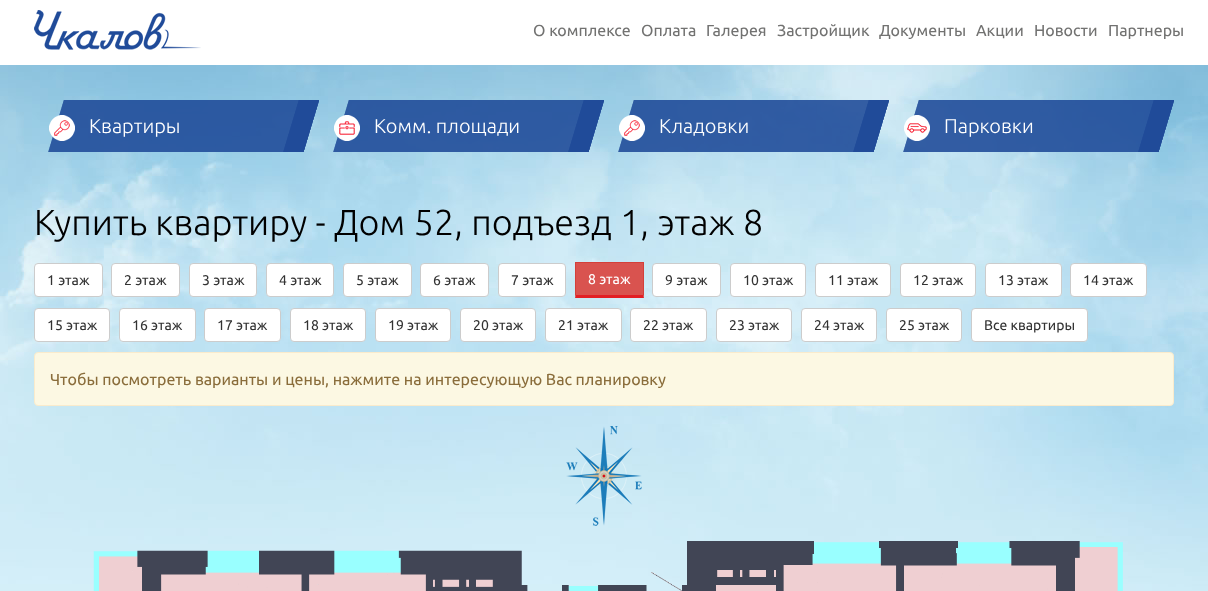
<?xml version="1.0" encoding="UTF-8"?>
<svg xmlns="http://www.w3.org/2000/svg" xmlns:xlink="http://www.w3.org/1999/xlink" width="1208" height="591">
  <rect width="100%" height="100%" fill="#ffffff" />
  <image x="0" y="65" width="1208" height="526" xlink:href="image1.png" />
  <image x="34" y="10" width="167" height="40" xlink:href="image2.png" />
  <image x="48" y="100" width="221" height="52" xlink:href="image3.png" />
  <image x="49" y="115" width="26" height="26" xlink:href="image4.png" />
  <image x="269" y="100" width="50" height="52" xlink:href="image5.png" />
  <image x="333" y="100" width="221" height="52" xlink:href="image6.png" />
  <image x="334" y="115" width="26" height="26" xlink:href="image7.png" />
  <image x="554" y="100" width="50" height="52" xlink:href="image8.png" />
  <image x="618" y="100" width="221" height="52" xlink:href="image9.png" />
  <image x="619" y="115" width="26" height="26" xlink:href="image10.png" />
  <image x="839" y="100" width="50" height="52" xlink:href="image11.png" />
  <image x="903" y="100" width="221" height="52" xlink:href="image12.png" />
  <image x="904" y="115" width="26" height="26" xlink:href="image13.png" />
  <image x="1124" y="100" width="50" height="52" xlink:href="image14.png" />
  <rect x="34.5" y="263.5" width="68" height="33" rx="3.5" fill="#ffffff" stroke="#cccccc" />
  <rect x="111.5" y="263.5" width="68" height="33" rx="3.5" fill="#ffffff" stroke="#cccccc" />
  <rect x="189.5" y="263.5" width="67" height="33" rx="3.5" fill="#ffffff" stroke="#cccccc" />
  <rect x="266.5" y="263.5" width="67" height="33" rx="3.5" fill="#ffffff" stroke="#cccccc" />
  <rect x="343.5" y="263.5" width="68" height="33" rx="3.5" fill="#ffffff" stroke="#cccccc" />
  <rect x="420.5" y="263.5" width="68" height="33" rx="3.5" fill="#ffffff" stroke="#cccccc" />
  <rect x="498.5" y="263.5" width="67" height="33" rx="3.5" fill="#ffffff" stroke="#cccccc" />
  <rect x="576" y="263" width="67" height="32" fill="#d9534f" />
  <rect x="575" y="262" width="69" height="1" fill="#d43f3a" />
  <path d="M 644 262 v 36 l -1 -3 v -32 z" fill="#d43f3a" />
  <path d="M 644 298 h -69 l 1 -3 h 67 z" fill="#e31e24" />
  <path d="M 575 298 v -36 l 1 1 v 32 z" fill="#d43f3a" />
  <rect x="652.5" y="263.5" width="68" height="33" rx="3.5" fill="#ffffff" stroke="#cccccc" />
  <rect x="730.5" y="263.5" width="75" height="33" rx="3.5" fill="#ffffff" stroke="#cccccc" />
  <rect x="815.5" y="263.5" width="75" height="33" rx="3.5" fill="#ffffff" stroke="#cccccc" />
  <rect x="900.5" y="263.5" width="75" height="33" rx="3.5" fill="#ffffff" stroke="#cccccc" />
  <rect x="985.5" y="263.5" width="76" height="33" rx="3.5" fill="#ffffff" stroke="#cccccc" />
  <rect x="1070.5" y="263.5" width="76" height="33" rx="3.5" fill="#ffffff" stroke="#cccccc" />
  <rect x="34.5" y="308.5" width="75" height="33" rx="3.5" fill="#ffffff" stroke="#cccccc" />
  <rect x="119.5" y="308.5" width="76" height="33" rx="3.5" fill="#ffffff" stroke="#cccccc" />
  <rect x="204.5" y="308.5" width="76" height="33" rx="3.5" fill="#ffffff" stroke="#cccccc" />
  <rect x="290.5" y="308.5" width="75" height="33" rx="3.5" fill="#ffffff" stroke="#cccccc" />
  <rect x="375.5" y="308.5" width="75" height="33" rx="3.5" fill="#ffffff" stroke="#cccccc" />
  <rect x="460.5" y="308.5" width="75" height="33" rx="3.5" fill="#ffffff" stroke="#cccccc" />
  <rect x="545.5" y="308.5" width="76" height="33" rx="3.5" fill="#ffffff" stroke="#cccccc" />
  <rect x="630.5" y="308.5" width="76" height="33" rx="3.5" fill="#ffffff" stroke="#cccccc" />
  <rect x="716.5" y="308.5" width="75" height="33" rx="3.5" fill="#ffffff" stroke="#cccccc" />
  <rect x="801.5" y="308.5" width="75" height="33" rx="3.5" fill="#ffffff" stroke="#cccccc" />
  <rect x="886.5" y="308.5" width="75" height="33" rx="3.5" fill="#ffffff" stroke="#cccccc" />
  <rect x="971.5" y="308.5" width="116" height="33" rx="3.5" fill="#ffffff" stroke="#cccccc" />
  <rect x="34.5" y="352.5" width="1139" height="53" rx="3.5" fill="#fcf8e3" stroke="#faebcc" />
  <image x="566" y="426" width="76" height="100" xlink:href="image15.png" />
  <image x="93" y="541" width="1030" height="50" xlink:href="image16.png" />
  <text x="533" y="36" style="font-family: Ubuntu; font-size: 16px; fill: #727271">О комплексе</text>
  <text x="641" y="36" style="font-family: Ubuntu; font-size: 16px; fill: #727271">Оплата</text>
  <text x="706" y="36" style="font-family: Ubuntu; font-size: 16px; fill: #727271">Галерея</text>
  <text x="777" y="36" style="font-family: Ubuntu; font-size: 16px; fill: #727271">Застройщик</text>
  <text x="879" y="36" style="font-family: Ubuntu; font-size: 16px; fill: #727271">Документы</text>
  <text x="976" y="36" style="font-family: Ubuntu; font-size: 16px; fill: #727271">Акции</text>
  <text x="1034" y="36" style="font-family: Ubuntu; font-size: 16px; fill: #727271">Новости</text>
  <text x="1108" y="36" style="font-family: Ubuntu; font-size: 16px; fill: #727271">Партнеры</text>
  <text x="89" y="133" style="font-family: Ubuntu; font-size: 20px; font-weight: 300; fill: #ffffff">Квартиры</text>
  <text x="374" y="133" style="font-family: Ubuntu; font-size: 20px; font-weight: 300; fill: #ffffff">Комм. площади</text>
  <text x="659" y="133" style="font-family: Ubuntu; font-size: 20px; font-weight: 300; fill: #ffffff">Кладовки</text>
  <text x="944" y="133" style="font-family: Ubuntu; font-size: 20px; font-weight: 300; fill: #ffffff">Парковки</text>
  <text x="34" y="235" style="font-family: Ubuntu; font-size: 36px; font-weight: 300; fill: #000000">Купить квартиру - Дом 52, подъезд 1, этаж 8</text>
  <text x="47" y="285" style="font-family: Ubuntu; font-size: 14px; fill: #333333">1 этаж</text>
  <text x="124" y="285" style="font-family: Ubuntu; font-size: 14px; fill: #333333">2 этаж</text>
  <text x="202" y="285" style="font-family: Ubuntu; font-size: 14px; fill: #333333">3 этаж</text>
  <text x="279" y="285" style="font-family: Ubuntu; font-size: 14px; fill: #333333">4 этаж</text>
  <text x="356" y="285" style="font-family: Ubuntu; font-size: 14px; fill: #333333">5 этаж</text>
  <text x="433" y="285" style="font-family: Ubuntu; font-size: 14px; fill: #333333">6 этаж</text>
  <text x="511" y="285" style="font-family: Ubuntu; font-size: 14px; fill: #333333">7 этаж</text>
  <text x="588" y="284" style="font-family: Ubuntu; font-size: 14px; fill: #ffffff">8 этаж</text>
  <text x="665" y="285" style="font-family: Ubuntu; font-size: 14px; fill: #333333">9 этаж</text>
  <text x="743" y="285" style="font-family: Ubuntu; font-size: 14px; fill: #333333">10 этаж</text>
  <text x="828" y="285" style="font-family: Ubuntu; font-size: 14px; fill: #333333">11 этаж</text>
  <text x="913" y="285" style="font-family: Ubuntu; font-size: 14px; fill: #333333">12 этаж</text>
  <text x="998" y="285" style="font-family: Ubuntu; font-size: 14px; fill: #333333">13 этаж</text>
  <text x="1083" y="285" style="font-family: Ubuntu; font-size: 14px; fill: #333333">14 этаж</text>
  <text x="47" y="330" style="font-family: Ubuntu; font-size: 14px; fill: #333333">15 этаж</text>
  <text x="132" y="330" style="font-family: Ubuntu; font-size: 14px; fill: #333333">16 этаж</text>
  <text x="217" y="330" style="font-family: Ubuntu; font-size: 14px; fill: #333333">17 этаж</text>
  <text x="303" y="330" style="font-family: Ubuntu; font-size: 14px; fill: #333333">18 этаж</text>
  <text x="388" y="330" style="font-family: Ubuntu; font-size: 14px; fill: #333333">19 этаж</text>
  <text x="473" y="330" style="font-family: Ubuntu; font-size: 14px; fill: #333333">20 этаж</text>
  <text x="558" y="330" style="font-family: Ubuntu; font-size: 14px; fill: #333333">21 этаж</text>
  <text x="643" y="330" style="font-family: Ubuntu; font-size: 14px; fill: #333333">22 этаж</text>
  <text x="729" y="330" style="font-family: Ubuntu; font-size: 14px; fill: #333333">23 этаж</text>
  <text x="814" y="330" style="font-family: Ubuntu; font-size: 14px; fill: #333333">24 этаж</text>
  <text x="899" y="330" style="font-family: Ubuntu; font-size: 14px; fill: #333333">25 этаж</text>
  <text x="984" y="330" style="font-family: Ubuntu; font-size: 14px; fill: #333333">Все квартиры</text>
  <text x="50" y="385" style="font-family: Ubuntu; font-size: 16px; fill: #8a6d3b">Чтобы посмотреть варианты и цены, нажмите на интересующую Вас планировку</text>
</svg>
